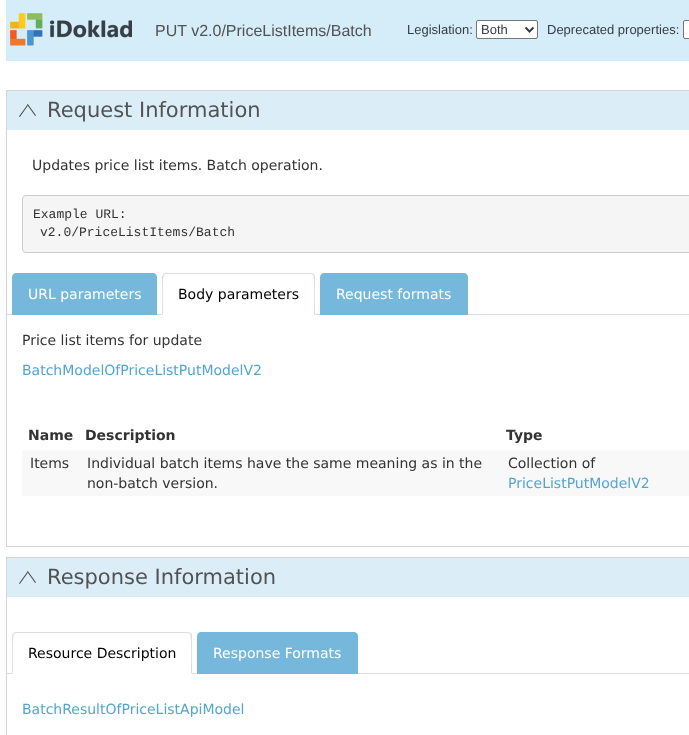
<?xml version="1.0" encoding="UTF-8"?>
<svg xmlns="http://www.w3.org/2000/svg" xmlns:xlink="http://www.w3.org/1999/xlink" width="689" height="735">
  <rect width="100%" height="100%" fill="#ffffff" />
  <rect x="6" width="683" height="61" fill="#d5edf9" />
  <image x="10" y="13" width="122" height="33" xlink:href="image1.png" />
  <rect x="476.5" y="20.5" width="61" height="18" rx="1.5" fill="#ffffff" stroke="#767676" />
  <path d="M 525.5 27.5 l 4 4 l 4 -4" fill="none" stroke="#353d45" stroke-width="2" />
  <rect x="683.5" y="20.5" width="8" height="18" rx="1.5" fill="#ffffff" stroke="#767676" />
  <rect x="7" y="91" width="682" height="39" fill="#dbeef8" />
  <image x="19" y="104" width="17" height="13" xlink:href="image2.png" />
  <rect x="6" y="90" width="683" height="1" fill="#d4d4d4" />
  <rect x="6" y="90" width="1" height="40" fill="#d4d4d4" />
  <rect x="6" y="546" width="683" height="1" fill="#d4d4d4" />
  <rect x="6" y="130" width="1" height="417" fill="#d4d4d4" />
  <rect x="22.5" y="195.5" width="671" height="57" rx="3.5" fill="#f5f5f5" stroke="#cccccc" />
  <rect x="7" y="314" width="682" height="1" fill="#dddddd" />
  <path d="M 16 273 h 137 c 2 0 4 2 4 4 v 38 h -145 v -38 c 0 -2 2 -4 4 -4 z" fill="#76b8db" />
  <path d="M 166 273 h 145 c 2 0 4 2 4 4 v 38 h -153 v -38 c 0 -2 2 -4 4 -4 z" fill="#ffffff" />
  <path d="M 166 273 l -3 1 l 1 1 l 2 -1 h 145 l 2 1 l 1 -1 l -3 -1 z" fill="#dddddd" />
  <path d="M 315 315 v -38 c 0 -1 -1 -2 -1 -3 l -1 1 c 2 2 1 34 1 39 z" fill="#dddddd" />
  <path d="M 162 315 l 1 -1 c 0 -5 -1 -37 1 -39 l -1 -1 l -1 3 z" fill="#dddddd" />
  <path d="M 324 273 h 140 c 2 0 4 2 4 4 v 38 h -148 v -38 c 0 -2 2 -4 4 -4 z" fill="#76b8db" />
  <rect x="22" y="450" width="667" height="46" fill="#f8f8f8" />
  <rect x="7" y="558" width="682" height="39" fill="#dbeef8" />
  <image x="19" y="571" width="17" height="13" xlink:href="image2.png" />
  <rect x="6" y="557" width="683" height="1" fill="#d4d4d4" />
  <rect x="6" y="557" width="1" height="178" fill="#d4d4d4" />
  <rect x="7" y="673" width="682" height="1" fill="#dddddd" />
  <path d="M 16 632 h 172 c 2 0 4 2 4 4 v 38 h -180 v -38 c 0 -2 2 -4 4 -4 z" fill="#ffffff" />
  <path d="M 16 632 l -3 1 l 1 1 l 2 -1 h 172 l 2 1 l 1 -1 l -3 -1 z" fill="#dddddd" />
  <path d="M 192 674 v -38 c 0 -1 0 -2 -1 -3 l -1 1 c 2 2 1 34 1 39 z" fill="#dddddd" />
  <path d="M 12 674 l 1 -1 c 0 -5 -1 -37 1 -39 l -1 -1 l -1 3 z" fill="#dddddd" />
  <path d="M 201 632 h 153 c 2 0 4 2 4 4 v 38 h -161 v -38 c 0 -2 2 -4 4 -4 z" fill="#76b8db" />
  <text x="155" y="36" style="font-family: Liberation Sans; font-size: 16px; fill: #525252">PUT v2.0/PriceListItems/Batch</text>
  <text x="407" y="34" style="font-family: Liberation Sans; font-size: 13px; fill: #353d45">Legislation:</text>
  <text x="481" y="34" style="font-family: Liberation Sans; font-size: 13px; fill: #353d45">Both</text>
  <text x="547" y="34" style="font-family: Liberation Sans; font-size: 13px; fill: #353d45">Deprecated properties:</text>
  <text x="47" y="117" style="font-family: DejaVu Sans; font-size: 21px; fill: #525252">Request Information</text>
  <text x="32" y="170" style="font-family: DejaVu Sans; font-size: 14px; fill: #333333">Updates price list items. Batch operation.</text>
  <text x="33" y="218" style="font-family: Liberation Mono; font-size: 13px; fill: #333333">Example URL:</text>
  <text x="40" y="236" style="font-family: Liberation Mono; font-size: 13px; fill: #333333">v2.0/PriceListItems/Batch</text>
  <text x="28" y="299" style="font-family: DejaVu Sans; font-size: 14px; fill: #ffffff">URL parameters</text>
  <text x="178" y="299" style="font-family: DejaVu Sans; font-size: 14px; fill: #000000">Body parameters</text>
  <text x="336" y="299" style="font-family: DejaVu Sans; font-size: 14px; fill: #ffffff">Request formats</text>
  <text x="22" y="345" style="font-family: DejaVu Sans; font-size: 14px; fill: #333333">Price list items for update</text>
  <text x="22" y="375" style="font-family: DejaVu Sans; font-size: 14px; fill: #53a5d0">BatchModelOfPriceListPutModelV2</text>
  <text x="28" y="440" style="font-family: DejaVu Sans; font-size: 14px; font-weight: bold; fill: #333333">Name</text>
  <text x="85" y="440" style="font-family: DejaVu Sans; font-size: 14px; font-weight: bold; fill: #333333">Description</text>
  <text x="506" y="440" style="font-family: DejaVu Sans; font-size: 14px; font-weight: bold; fill: #333333">Type</text>
  <text x="30" y="468" style="font-family: DejaVu Sans; font-size: 14px; fill: #333333">Items</text>
  <text x="87" y="468" style="font-family: DejaVu Sans; font-size: 14px; fill: #333333">Individual batch items have the same meaning as in the</text>
  <text x="87" y="488" style="font-family: DejaVu Sans; font-size: 14px; fill: #333333">non-batch version.</text>
  <text x="508" y="468" style="font-family: DejaVu Sans; font-size: 14px; fill: #333333">Collection of</text>
  <text x="508" y="488" style="font-family: DejaVu Sans; font-size: 14px; fill: #53a5d0">PriceListPutModelV2</text>
  <text x="47" y="584" style="font-family: DejaVu Sans; font-size: 21px; fill: #525252">Response Information</text>
  <text x="28" y="658" style="font-family: DejaVu Sans; font-size: 14px; fill: #000000">Resource Description</text>
  <text x="213" y="658" style="font-family: DejaVu Sans; font-size: 14px; fill: #ffffff">Response Formats</text>
  <text x="22" y="714" style="font-family: DejaVu Sans; font-size: 14px; fill: #53a5d0">BatchResultOfPriceListApiModel</text>
</svg>
